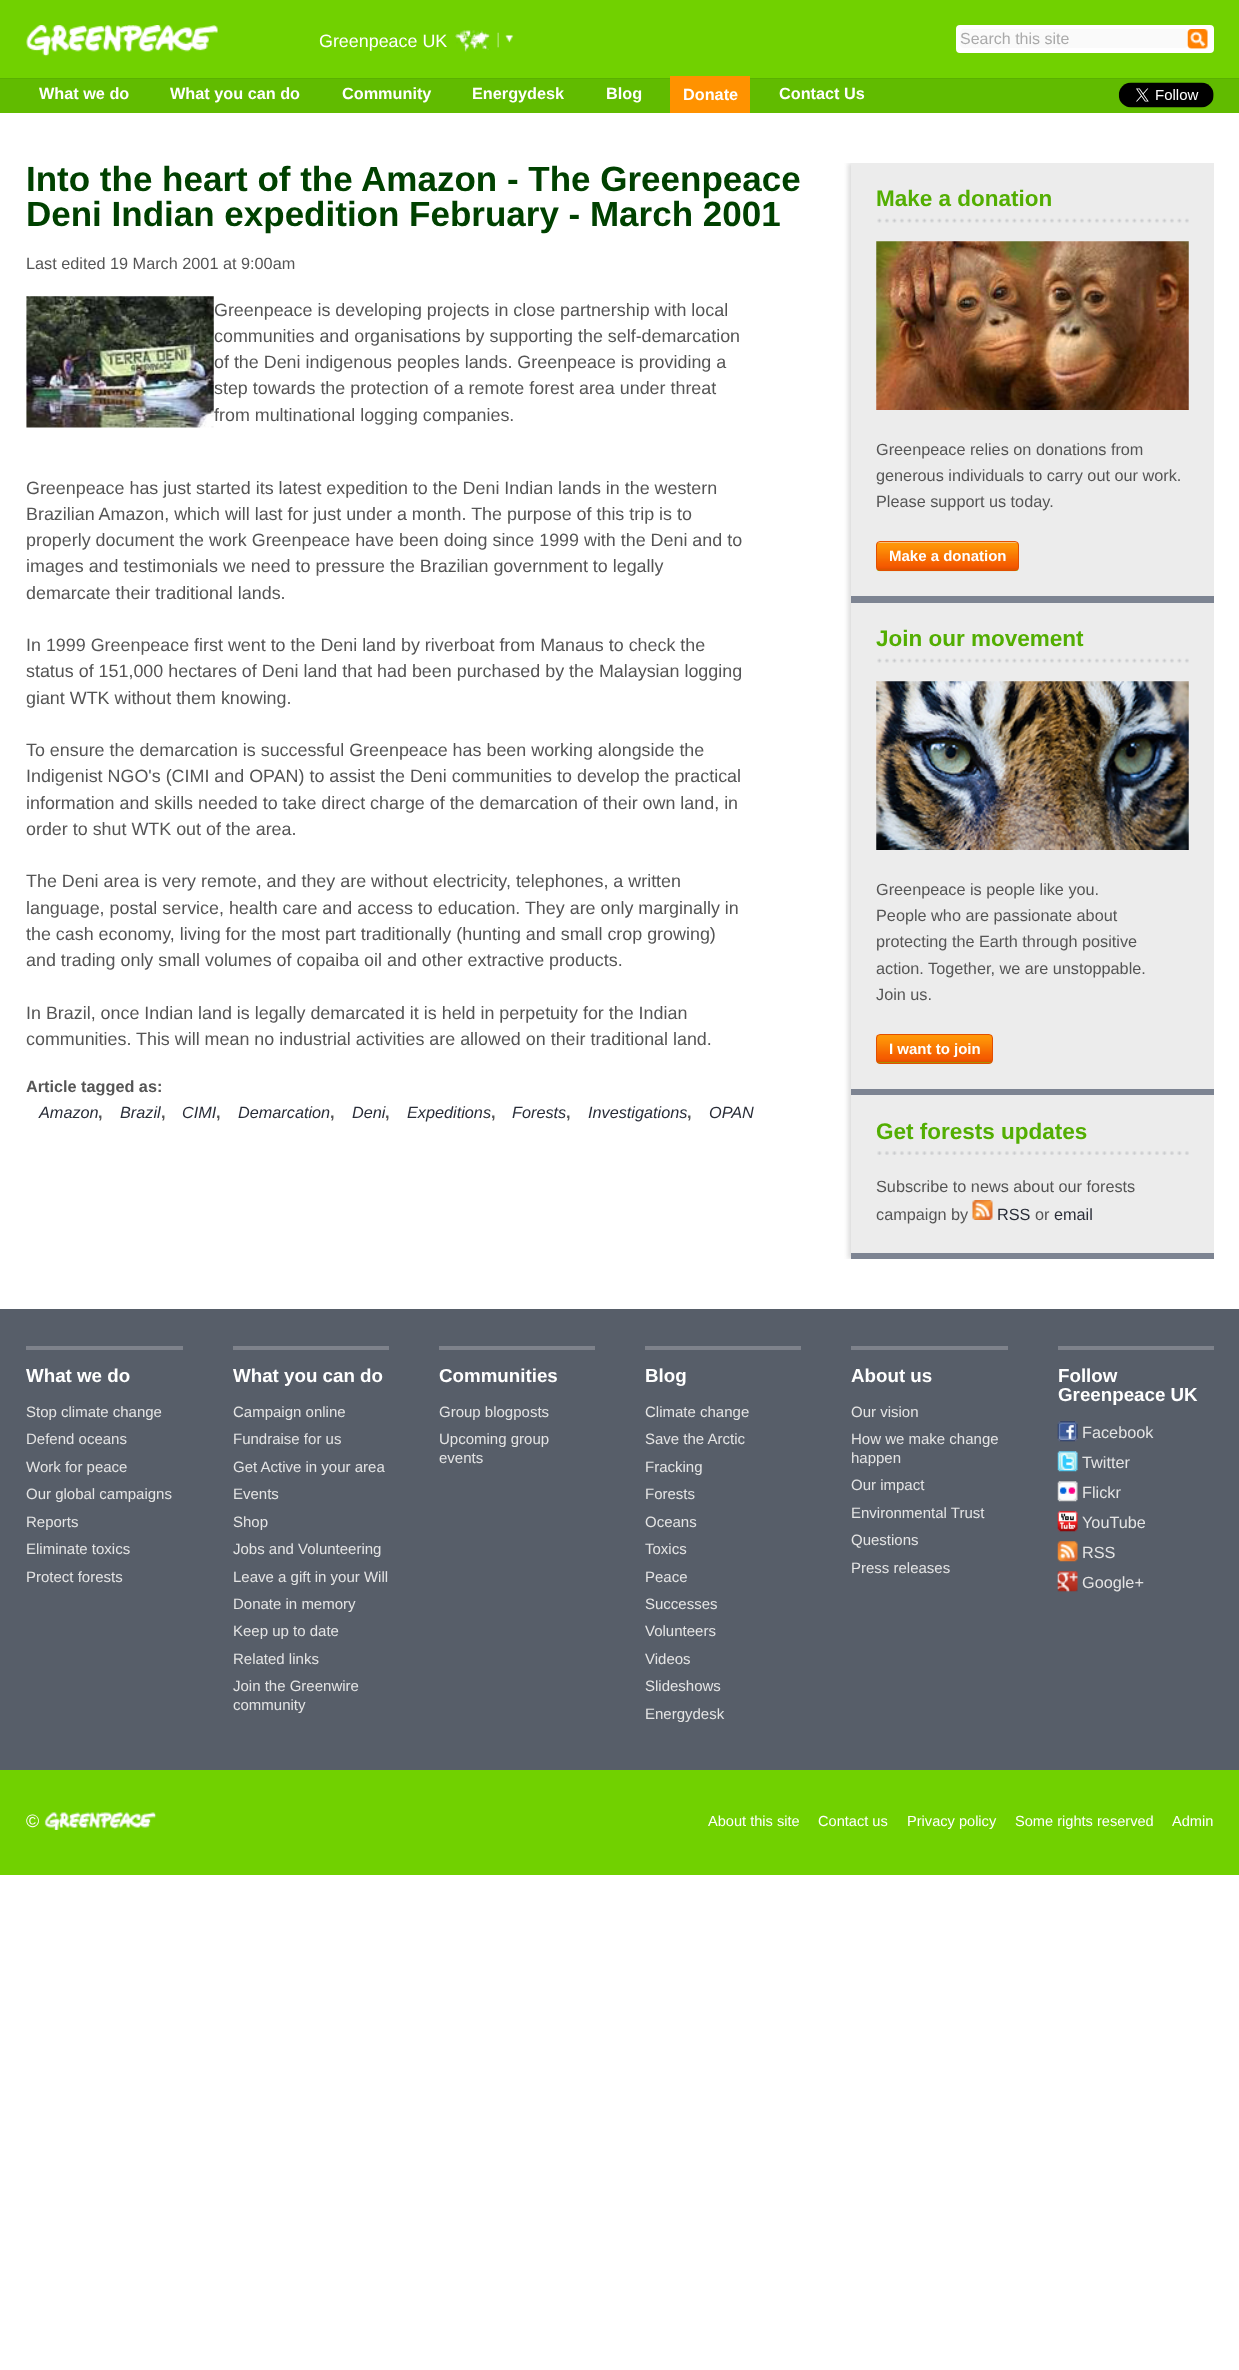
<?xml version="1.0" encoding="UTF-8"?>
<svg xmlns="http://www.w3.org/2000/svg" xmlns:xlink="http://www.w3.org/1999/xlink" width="1239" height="2370">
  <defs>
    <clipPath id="clip1"><rect x="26" y="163" width="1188" height="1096" /></clipPath>
  </defs>
  <rect width="100%" height="100%" fill="#ffffff" />
  <rect width="1239" height="78" fill="#71d100" />
  <image x="26" y="25" width="192" height="32" xlink:href="image1.png" />
  <image x="455" y="30" width="59" height="22" xlink:href="image2.png" />
  <rect x="958" y="27" width="254" height="24" rx="2" fill="#ffffff" stroke="#ffffff" stroke-width="4" />
  <rect x="960" y="29" width="228" height="19" rx="4" fill="#fafafa" />
  <image x="1187" y="29" width="21" height="20" xlink:href="image3.png" />
  <rect y="79" width="1239" height="34" fill="#61bb00" />
  <rect y="78" width="1239" height="1" fill="#59b100" />
  <rect x="670" y="76" width="80" height="37" fill="#ff9200" />
  <image x="1118" y="82" width="96" height="26" xlink:href="image4.png" />
  <image x="26" y="296" width="188" height="132" xlink:href="image5.png" />
  <g clip-path="url(#clip1)">
    <rect x="848" y="163" width="362" height="1096" fill="#dddddd" filter="blur(2px)" />
  </g>
  <rect x="851" y="163" width="363" height="433" fill="#ececec" />
  <rect x="851" y="596" width="363" height="7" fill="#7d8492" />
  <image x="877" y="218" width="312" height="5" xlink:href="image6.png" />
  <image x="876" y="241" width="313" height="169" xlink:href="image7.png" />
  <image x="876" y="542" width="143" height="30" xlink:href="image8.png" />
  <rect x="876.5" y="541.5" width="142" height="29" rx="3.5" fill="none" stroke="#e34f00" />
  <rect x="851" y="603" width="363" height="486" fill="#ececec" />
  <rect x="851" y="1089" width="363" height="6" fill="#7d8492" />
  <image x="877" y="658" width="312" height="5" xlink:href="image6.png" />
  <image x="876" y="681" width="313" height="169" xlink:href="image9.png" />
  <image x="876" y="1035" width="117" height="29" xlink:href="image10.png" />
  <rect x="876.5" y="1034.5" width="116" height="29" rx="3.5" fill="none" stroke="#e34f00" />
  <rect x="851" y="1095" width="363" height="158" fill="#ececec" />
  <rect x="851" y="1253" width="363" height="6" fill="#7d8492" />
  <image x="877" y="1151" width="312" height="4" xlink:href="image11.png" />
  <image x="972" y="1200" width="21" height="20" xlink:href="image12.png" />
  <rect y="1309" width="1239" height="461" fill="#575e69" />
  <rect x="26" y="1346" width="157" height="4" fill="#7e828b" />
  <rect x="233" y="1346" width="156" height="4" fill="#7e828b" />
  <rect x="439" y="1346" width="156" height="4" fill="#7e828b" />
  <rect x="645" y="1346" width="156" height="4" fill="#7e828b" />
  <rect x="851" y="1346" width="157" height="4" fill="#7e828b" />
  <rect x="1058" y="1346" width="156" height="4" fill="#7e828b" />
  <image x="1057" y="1421" width="21" height="21" xlink:href="image13.png" />
  <image x="1057" y="1451" width="21" height="21" xlink:href="image14.png" />
  <image x="1057" y="1481" width="21" height="21" xlink:href="image15.png" />
  <image x="1057" y="1511" width="21" height="21" xlink:href="image16.png" />
  <image x="1057" y="1541" width="21" height="21" xlink:href="image17.png" />
  <image x="1057" y="1571" width="21" height="21" xlink:href="image18.png" />
  <rect y="1770" width="1239" height="105" fill="#71d100" />
  <image x="44" y="1812" width="113" height="18" xlink:href="image19.png" />
  <text x="319" y="47" style="font-family: Liberation Sans; font-size: 17.9px; fill: #ffffff">Greenpeace UK</text>
  <text x="960" y="44" style="font-family: Liberation Sans; font-size: 16px; fill: #aaaaaa">Search this site</text>
  <text x="39" y="99" style="font-family: Liberation Sans; font-size: 16.25px; font-weight: bold; fill: #ffffff">What we do</text>
  <text x="170" y="99" style="font-family: Liberation Sans; font-size: 16.25px; font-weight: bold; fill: #ffffff">What you can do</text>
  <text x="342" y="99" style="font-family: Liberation Sans; font-size: 16.25px; font-weight: bold; fill: #ffffff">Community</text>
  <text x="472" y="99" style="font-family: Liberation Sans; font-size: 16.25px; font-weight: bold; fill: #ffffff">Energydesk</text>
  <text x="606" y="99" style="font-family: Liberation Sans; font-size: 16.25px; font-weight: bold; fill: #ffffff">Blog</text>
  <text x="683" y="100" style="font-family: Liberation Sans; font-size: 16.25px; font-weight: bold; fill: #ffffff">Donate</text>
  <text x="779" y="99" style="font-family: Liberation Sans; font-size: 16.25px; font-weight: bold; fill: #ffffff">Contact Us</text>
  <text x="26" y="191" style="font-family: Liberation Sans; font-size: 35px; font-weight: bold; fill: #004100">Into the heart of the Amazon - The Greenpeace</text>
  <text x="26" y="226" style="font-family: Liberation Sans; font-size: 35px; font-weight: bold; fill: #004100">Deni Indian expedition February - March 2001</text>
  <text x="26" y="269" style="font-family: Liberation Sans; font-size: 16.25px; fill: #555555">Last edited 19 March 2001 at 9:00am</text>
  <text x="214" y="316" style="font-family: Liberation Sans; font-size: 17.9px; fill: #555555">Greenpeace is developing projects in close partnership with local</text>
  <text x="214" y="342" style="font-family: Liberation Sans; font-size: 17.9px; fill: #555555">communities and organisations by supporting the self-demarcation</text>
  <text x="214" y="368" style="font-family: Liberation Sans; font-size: 17.9px; fill: #555555">of the Deni indigenous peoples lands. Greenpeace is providing a</text>
  <text x="214" y="394" style="font-family: Liberation Sans; font-size: 17.9px; fill: #555555">step towards the protection of a remote forest area under threat</text>
  <text x="214" y="421" style="font-family: Liberation Sans; font-size: 17.9px; fill: #555555">from multinational logging companies.</text>
  <text x="26" y="494" style="font-family: Liberation Sans; font-size: 17.9px; fill: #555555">Greenpeace has just started its latest expedition to the Deni Indian lands in the western</text>
  <text x="26" y="520" style="font-family: Liberation Sans; font-size: 17.9px; fill: #555555">Brazilian Amazon, which will last for just under a month. The purpose of this trip is to</text>
  <text x="26" y="546" style="font-family: Liberation Sans; font-size: 17.9px; fill: #555555">properly document the work Greenpeace have been doing since 1999 with the Deni and to</text>
  <text x="26" y="572" style="font-family: Liberation Sans; font-size: 17.9px; fill: #555555">images and testimonials we need to pressure the Brazilian government to legally</text>
  <text x="26" y="599" style="font-family: Liberation Sans; font-size: 17.9px; fill: #555555">demarcate their traditional lands.</text>
  <text x="26" y="651" style="font-family: Liberation Sans; font-size: 17.9px; fill: #555555">In 1999 Greenpeace first went to the Deni land by riverboat from Manaus to check the</text>
  <text x="26" y="677" style="font-family: Liberation Sans; font-size: 17.9px; fill: #555555">status of 151,000 hectares of Deni land that had been purchased by the Malaysian logging</text>
  <text x="26" y="704" style="font-family: Liberation Sans; font-size: 17.9px; fill: #555555">giant WTK without them knowing.</text>
  <text x="26" y="756" style="font-family: Liberation Sans; font-size: 17.9px; fill: #555555">To ensure the demarcation is successful Greenpeace has been working alongside the</text>
  <text x="26" y="782" style="font-family: Liberation Sans; font-size: 17.9px; fill: #555555">Indigenist NGO's (CIMI and OPAN) to assist the Deni communities to develop the practical</text>
  <text x="26" y="809" style="font-family: Liberation Sans; font-size: 17.9px; fill: #555555">information and skills needed to take direct charge of the demarcation of their own land, in</text>
  <text x="26" y="835" style="font-family: Liberation Sans; font-size: 17.9px; fill: #555555">order to shut WTK out of the area.</text>
  <text x="26" y="887" style="font-family: Liberation Sans; font-size: 17.9px; fill: #555555">The Deni area is very remote, and they are without electricity, telephones, a written</text>
  <text x="26" y="914" style="font-family: Liberation Sans; font-size: 17.9px; fill: #555555">language, postal service, health care and access to education. They are only marginally in</text>
  <text x="26" y="940" style="font-family: Liberation Sans; font-size: 17.9px; fill: #555555">the cash economy, living for the most part traditionally (hunting and small crop growing)</text>
  <text x="26" y="966" style="font-family: Liberation Sans; font-size: 17.9px; fill: #555555">and trading only small volumes of copaiba oil and other extractive products.</text>
  <text x="26" y="1019" style="font-family: Liberation Sans; font-size: 17.9px; fill: #555555">In Brazil, once Indian land is legally demarcated it is held in perpetuity for the Indian</text>
  <text x="26" y="1045" style="font-family: Liberation Sans; font-size: 17.9px; fill: #555555">communities.</text>
  <text x="136" y="1045" style="font-family: Liberation Sans; font-size: 17.9px; fill: #555555">This will mean no industrial activities are allowed on their traditional land.</text>
  <text x="26" y="1092" style="font-family: Liberation Sans; font-size: 16.25px; font-weight: bold; fill: #555555">Article tagged as:</text>
  <text x="39" y="1118" style="font-family: Liberation Sans; font-size: 16.25px; font-style: italic; fill: #292d38">Amazon</text>
  <text x="98" y="1118" style="font-family: Liberation Sans; font-size: 16.25px; font-weight: bold; fill: #555555">,</text>
  <text x="120" y="1118" style="font-family: Liberation Sans; font-size: 16.25px; font-style: italic; fill: #292d38">Brazil</text>
  <text x="161" y="1118" style="font-family: Liberation Sans; font-size: 16.25px; font-weight: bold; fill: #555555">,</text>
  <text x="182" y="1118" style="font-family: Liberation Sans; font-size: 16.25px; font-style: italic; fill: #292d38">CIMI</text>
  <text x="216" y="1118" style="font-family: Liberation Sans; font-size: 16.25px; font-weight: bold; fill: #555555">,</text>
  <text x="238" y="1118" style="font-family: Liberation Sans; font-size: 16.25px; font-style: italic; fill: #292d38">Demarcation</text>
  <text x="330" y="1118" style="font-family: Liberation Sans; font-size: 16.25px; font-weight: bold; fill: #555555">,</text>
  <text x="352" y="1118" style="font-family: Liberation Sans; font-size: 16.25px; font-style: italic; fill: #292d38">Deni</text>
  <text x="385" y="1118" style="font-family: Liberation Sans; font-size: 16.25px; font-weight: bold; fill: #555555">,</text>
  <text x="407" y="1118" style="font-family: Liberation Sans; font-size: 16.25px; font-style: italic; fill: #292d38">Expeditions</text>
  <text x="491" y="1118" style="font-family: Liberation Sans; font-size: 16.25px; font-weight: bold; fill: #555555">,</text>
  <text x="512" y="1118" style="font-family: Liberation Sans; font-size: 16.25px; font-style: italic; fill: #292d38">Forests</text>
  <text x="566" y="1118" style="font-family: Liberation Sans; font-size: 16.25px; font-weight: bold; fill: #555555">,</text>
  <text x="588" y="1118" style="font-family: Liberation Sans; font-size: 16.25px; font-style: italic; fill: #292d38">Investigations</text>
  <text x="687" y="1118" style="font-family: Liberation Sans; font-size: 16.25px; font-weight: bold; fill: #555555">,</text>
  <text x="709" y="1118" style="font-family: Liberation Sans; font-size: 16.25px; font-style: italic; fill: #292d38">OPAN</text>
  <text x="876" y="206" style="font-family: Liberation Sans; font-size: 22.5px; font-weight: bold; fill: #53ae02">Make a donation</text>
  <text x="876" y="455" style="font-family: Liberation Sans; font-size: 16.25px; fill: #555555">Greenpeace relies on donations from</text>
  <text x="876" y="481" style="font-family: Liberation Sans; font-size: 16.25px; fill: #555555">generous individuals to carry out our work.</text>
  <text x="876" y="507" style="font-family: Liberation Sans; font-size: 16.25px; fill: #555555">Please support us today.</text>
  <text x="889" y="561" style="font-family: Liberation Sans; font-size: 15px; font-weight: bold; fill: #ffffff">Make a donation</text>
  <text x="876" y="646" style="font-family: Liberation Sans; font-size: 22.5px; font-weight: bold; fill: #53ae02">Join our movement</text>
  <text x="876" y="895" style="font-family: Liberation Sans; font-size: 16.25px; fill: #555555">Greenpeace is people like you.</text>
  <text x="876" y="921" style="font-family: Liberation Sans; font-size: 16.25px; fill: #555555">People who are passionate about</text>
  <text x="876" y="947" style="font-family: Liberation Sans; font-size: 16.25px; fill: #555555">protecting the Earth through positive</text>
  <text x="876" y="974" style="font-family: Liberation Sans; font-size: 16.25px; fill: #555555">action. Together, we are unstoppable.</text>
  <text x="876" y="1000" style="font-family: Liberation Sans; font-size: 16.25px; fill: #555555">Join us.</text>
  <text x="889" y="1054" style="font-family: Liberation Sans; font-size: 15px; font-weight: bold; fill: #ffffff">I want to join</text>
  <text x="876" y="1139" style="font-family: Liberation Sans; font-size: 22.5px; font-weight: bold; fill: #53ae02">Get forests updates</text>
  <text x="876" y="1192" style="font-family: Liberation Sans; font-size: 16.25px; fill: #555555">Subscribe to news about our forests</text>
  <text x="876" y="1220" style="font-family: Liberation Sans; font-size: 16.25px; fill: #555555">campaign by</text>
  <text x="997" y="1220" style="font-family: Liberation Sans; font-size: 16.25px; fill: #292d38">RSS</text>
  <text x="1035" y="1220" style="font-family: Liberation Sans; font-size: 16.25px; fill: #555555">or</text>
  <text x="1054" y="1220" style="font-family: Liberation Sans; font-size: 16.25px; fill: #292d38">email</text>
  <text x="26" y="1382" style="font-family: Liberation Sans; font-size: 18.75px; font-weight: bold; fill: #ffffff">What we do</text>
  <text x="26" y="1417" style="font-family: Liberation Sans; font-size: 15px; fill: #e4e4e4">Stop climate change</text>
  <text x="26" y="1444" style="font-family: Liberation Sans; font-size: 15px; fill: #e4e4e4">Defend oceans</text>
  <text x="26" y="1472" style="font-family: Liberation Sans; font-size: 15px; fill: #e4e4e4">Work for peace</text>
  <text x="26" y="1499" style="font-family: Liberation Sans; font-size: 15px; fill: #e4e4e4">Our global campaigns</text>
  <text x="26" y="1527" style="font-family: Liberation Sans; font-size: 15px; fill: #e4e4e4">Reports</text>
  <text x="26" y="1554" style="font-family: Liberation Sans; font-size: 15px; fill: #e4e4e4">Eliminate toxics</text>
  <text x="26" y="1582" style="font-family: Liberation Sans; font-size: 15px; fill: #e4e4e4">Protect forests</text>
  <text x="233" y="1382" style="font-family: Liberation Sans; font-size: 18.75px; font-weight: bold; fill: #ffffff">What you can do</text>
  <text x="233" y="1417" style="font-family: Liberation Sans; font-size: 15px; fill: #e4e4e4">Campaign online</text>
  <text x="233" y="1444" style="font-family: Liberation Sans; font-size: 15px; fill: #e4e4e4">Fundraise for us</text>
  <text x="233" y="1472" style="font-family: Liberation Sans; font-size: 15px; fill: #e4e4e4">Get Active in your area</text>
  <text x="233" y="1499" style="font-family: Liberation Sans; font-size: 15px; fill: #e4e4e4">Events</text>
  <text x="233" y="1527" style="font-family: Liberation Sans; font-size: 15px; fill: #e4e4e4">Shop</text>
  <text x="233" y="1554" style="font-family: Liberation Sans; font-size: 15px; fill: #e4e4e4">Jobs and Volunteering</text>
  <text x="233" y="1582" style="font-family: Liberation Sans; font-size: 15px; fill: #e4e4e4">Leave a gift in your Will</text>
  <text x="233" y="1609" style="font-family: Liberation Sans; font-size: 15px; fill: #e4e4e4">Donate in memory</text>
  <text x="233" y="1636" style="font-family: Liberation Sans; font-size: 15px; fill: #e4e4e4">Keep up to date</text>
  <text x="233" y="1664" style="font-family: Liberation Sans; font-size: 15px; fill: #e4e4e4">Related links</text>
  <text x="233" y="1691" style="font-family: Liberation Sans; font-size: 15px; fill: #e4e4e4">Join the Greenwire</text>
  <text x="233" y="1710" style="font-family: Liberation Sans; font-size: 15px; fill: #e4e4e4">community</text>
  <text x="439" y="1382" style="font-family: Liberation Sans; font-size: 18.75px; font-weight: bold; fill: #ffffff">Communities</text>
  <text x="439" y="1417" style="font-family: Liberation Sans; font-size: 15px; fill: #e4e4e4">Group blogposts</text>
  <text x="439" y="1444" style="font-family: Liberation Sans; font-size: 15px; fill: #e4e4e4">Upcoming group</text>
  <text x="439" y="1463" style="font-family: Liberation Sans; font-size: 15px; fill: #e4e4e4">events</text>
  <text x="645" y="1382" style="font-family: Liberation Sans; font-size: 18.75px; font-weight: bold; fill: #ffffff">Blog</text>
  <text x="645" y="1417" style="font-family: Liberation Sans; font-size: 15px; fill: #e4e4e4">Climate change</text>
  <text x="645" y="1444" style="font-family: Liberation Sans; font-size: 15px; fill: #e4e4e4">Save the Arctic</text>
  <text x="645" y="1472" style="font-family: Liberation Sans; font-size: 15px; fill: #e4e4e4">Fracking</text>
  <text x="645" y="1499" style="font-family: Liberation Sans; font-size: 15px; fill: #e4e4e4">Forests</text>
  <text x="645" y="1527" style="font-family: Liberation Sans; font-size: 15px; fill: #e4e4e4">Oceans</text>
  <text x="645" y="1554" style="font-family: Liberation Sans; font-size: 15px; fill: #e4e4e4">Toxics</text>
  <text x="645" y="1582" style="font-family: Liberation Sans; font-size: 15px; fill: #e4e4e4">Peace</text>
  <text x="645" y="1609" style="font-family: Liberation Sans; font-size: 15px; fill: #e4e4e4">Successes</text>
  <text x="645" y="1636" style="font-family: Liberation Sans; font-size: 15px; fill: #e4e4e4">Volunteers</text>
  <text x="645" y="1664" style="font-family: Liberation Sans; font-size: 15px; fill: #e4e4e4">Videos</text>
  <text x="645" y="1691" style="font-family: Liberation Sans; font-size: 15px; fill: #e4e4e4">Slideshows</text>
  <text x="645" y="1719" style="font-family: Liberation Sans; font-size: 15px; fill: #e4e4e4">Energydesk</text>
  <text x="851" y="1382" style="font-family: Liberation Sans; font-size: 18.75px; font-weight: bold; fill: #ffffff">About us</text>
  <text x="851" y="1417" style="font-family: Liberation Sans; font-size: 15px; fill: #e4e4e4">Our vision</text>
  <text x="851" y="1444" style="font-family: Liberation Sans; font-size: 15px; fill: #e4e4e4">How we make change</text>
  <text x="851" y="1463" style="font-family: Liberation Sans; font-size: 15px; fill: #e4e4e4">happen</text>
  <text x="851" y="1490" style="font-family: Liberation Sans; font-size: 15px; fill: #e4e4e4">Our impact</text>
  <text x="851" y="1518" style="font-family: Liberation Sans; font-size: 15px; fill: #e4e4e4">Environmental Trust</text>
  <text x="851" y="1545" style="font-family: Liberation Sans; font-size: 15px; fill: #e4e4e4">Questions</text>
  <text x="851" y="1573" style="font-family: Liberation Sans; font-size: 15px; fill: #e4e4e4">Press releases</text>
  <text x="1058" y="1382" style="font-family: Liberation Sans; font-size: 18.75px; font-weight: bold; fill: #ffffff">Follow</text>
  <text x="1058" y="1401" style="font-family: Liberation Sans; font-size: 18.75px; font-weight: bold; fill: #ffffff">Greenpeace UK</text>
  <text x="1082" y="1438" style="font-family: Liberation Sans; font-size: 16.25px; fill: #e4e4e4">Facebook</text>
  <text x="1082" y="1468" style="font-family: Liberation Sans; font-size: 16.25px; fill: #e4e4e4">Twitter</text>
  <text x="1082" y="1498" style="font-family: Liberation Sans; font-size: 16.25px; fill: #e4e4e4">Flickr</text>
  <text x="1082" y="1528" style="font-family: Liberation Sans; font-size: 16.25px; fill: #e4e4e4">YouTube</text>
  <text x="1082" y="1558" style="font-family: Liberation Sans; font-size: 16.25px; fill: #e4e4e4">RSS</text>
  <text x="1082" y="1588" style="font-family: Liberation Sans; font-size: 16.25px; fill: #e4e4e4">Google+</text>
  <text x="26" y="1827" style="font-family: Liberation Sans; font-size: 17.9px; fill: #ffffff">©</text>
  <text x="708" y="1826" style="font-family: Liberation Sans; font-size: 14.6px; fill: #ffffff">About this site</text>
  <text x="818" y="1826" style="font-family: Liberation Sans; font-size: 14.6px; fill: #ffffff">Contact us</text>
  <text x="907" y="1826" style="font-family: Liberation Sans; font-size: 14.6px; fill: #ffffff">Privacy policy</text>
  <text x="1015" y="1826" style="font-family: Liberation Sans; font-size: 14.6px; fill: #ffffff">Some rights reserved</text>
  <text x="1172" y="1826" style="font-family: Liberation Sans; font-size: 14.6px; fill: #ffffff">Admin</text>
</svg>
